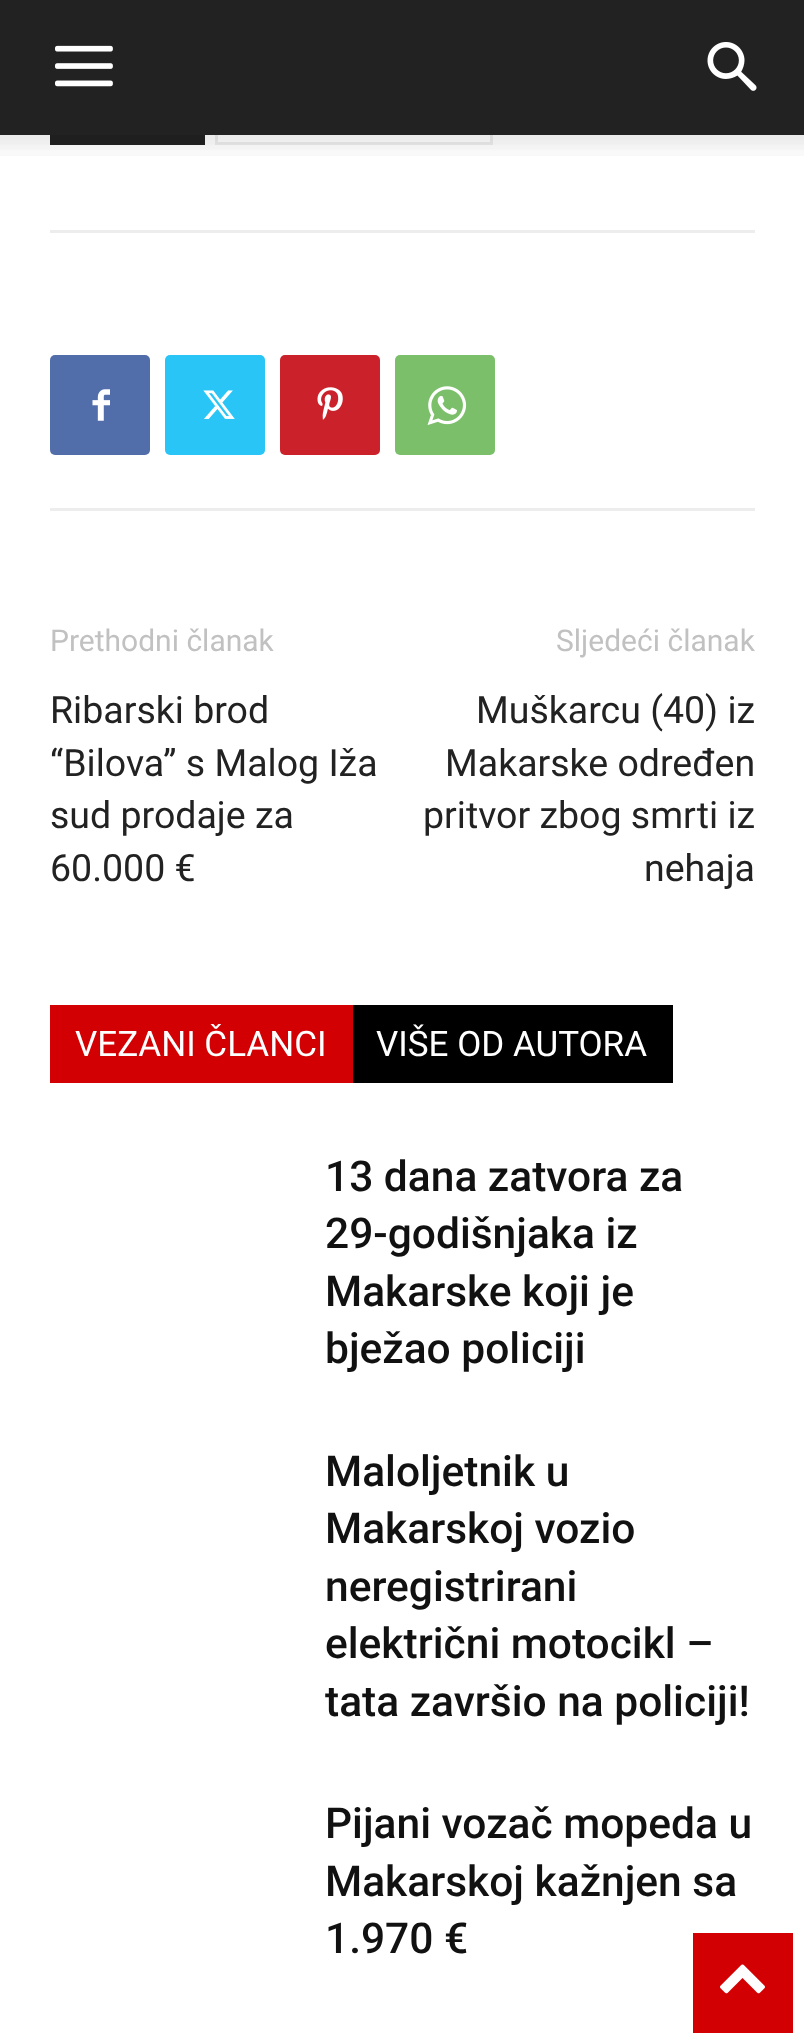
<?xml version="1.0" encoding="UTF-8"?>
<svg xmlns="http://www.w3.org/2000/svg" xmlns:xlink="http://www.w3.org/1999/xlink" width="804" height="2042">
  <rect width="100%" height="100%" fill="#ffffff" />
  <rect x="216.5" y="96.5" width="275" height="47" fill="none" stroke="#ededed" stroke-width="3" />
  <rect width="804" height="135" fill="#222222" />
  <image x="55" y="45" width="58" height="42" xlink:href="image1.png" />
  <image x="707" y="42" width="50" height="49" xlink:href="image2.png" />
  <rect x="50" y="135" width="155" height="10" fill="#222222" />
  <image x="0" y="135" width="804" height="21" xlink:href="image3.png" />
  <rect x="50" y="230" width="705" height="3" fill="#ededed" />
  <rect x="50" y="508" width="705" height="3" fill="#ededed" />
  <rect x="50" y="355" width="100" height="100" rx="5" fill="#516eab" />
  <image x="92" y="389" width="18" height="32" xlink:href="image4.png" />
  <rect x="165" y="355" width="100" height="100" rx="5" fill="#29c5f6" />
  <image x="203" y="390" width="32" height="29" xlink:href="image5.png" />
  <rect x="280" y="355" width="100" height="100" rx="5" fill="#ca212a" />
  <image x="317" y="387" width="26" height="33" xlink:href="image6.png" />
  <rect x="395" y="355" width="100" height="100" rx="5" fill="#7bbf6a" />
  <image x="427" y="386" width="40" height="39" xlink:href="image7.png" />
  <rect x="50" y="1005" width="303" height="78" fill="#d30003" />
  <rect x="353" y="1005" width="320" height="78" fill="#000000" />
  <rect x="693" y="1933" width="100" height="100" fill="#d30003" />
  <image x="720" y="1964" width="45" height="30" xlink:href="image8.png" />
  <text x="50" y="651" style="font-family: Roboto; font-size: 30px; fill: #c1c1c1">Prethodni članak</text>
  <text x="50" y="723" style="font-family: Roboto; font-size: 37.5px; fill: #222222">Ribarski brod</text>
  <text x="50" y="776" style="font-family: Roboto; font-size: 37.5px; fill: #222222">“Bilova” s Malog Iža</text>
  <text x="50" y="828" style="font-family: Roboto; font-size: 37.5px; fill: #222222">sud prodaje za</text>
  <text x="50" y="881" style="font-family: Roboto; font-size: 37.5px; fill: #222222">60.000 €</text>
  <text x="556" y="651" style="font-family: Roboto; font-size: 30px; fill: #c1c1c1">Sljedeći članak</text>
  <text x="476" y="723" style="font-family: Roboto; font-size: 37.5px; fill: #222222">Muškarcu (40) iz</text>
  <text x="445" y="776" style="font-family: Roboto; font-size: 37.5px; fill: #222222">Makarske određen</text>
  <text x="423" y="828" style="font-family: Roboto; font-size: 37.5px; fill: #222222">pritvor zbog smrti iz</text>
  <text x="644" y="881" style="font-family: Roboto; font-size: 37.5px; fill: #222222">nehaja</text>
  <text x="75" y="1056" style="font-family: Roboto; font-size: 35px; fill: #ffffff">VEZANI ČLANCI</text>
  <text x="376" y="1056" style="font-family: Roboto; font-size: 35px; fill: #ffffff">VIŠE OD AUTORA</text>
  <text x="325" y="1191" style="font-family: Roboto; font-size: 42.5px; font-weight: 500; fill: #111111">13 dana zatvora za</text>
  <text x="325" y="1248" style="font-family: Roboto; font-size: 42.5px; font-weight: 500; fill: #111111">29-godišnjaka iz</text>
  <text x="325" y="1306" style="font-family: Roboto; font-size: 42.5px; font-weight: 500; fill: #111111">Makarske koji je</text>
  <text x="325" y="1363" style="font-family: Roboto; font-size: 42.5px; font-weight: 500; fill: #111111">bježao policiji</text>
  <text x="325" y="1486" style="font-family: Roboto; font-size: 42.5px; font-weight: 500; fill: #111111">Maloljetnik u</text>
  <text x="325" y="1543" style="font-family: Roboto; font-size: 42.5px; font-weight: 500; fill: #111111">Makarskoj vozio</text>
  <text x="325" y="1601" style="font-family: Roboto; font-size: 42.5px; font-weight: 500; fill: #111111">neregistrirani</text>
  <text x="325" y="1658" style="font-family: Roboto; font-size: 42.5px; font-weight: 500; fill: #111111">električni motocikl –</text>
  <text x="325" y="1716" style="font-family: Roboto; font-size: 42.5px; font-weight: 500; fill: #111111">tata završio na policiji!</text>
  <text x="325" y="1838" style="font-family: Roboto; font-size: 42.5px; font-weight: 500; fill: #111111">Pijani vozač mopeda u</text>
  <text x="325" y="1896" style="font-family: Roboto; font-size: 42.5px; font-weight: 500; fill: #111111">Makarskoj kažnjen sa</text>
  <text x="325" y="1953" style="font-family: Roboto; font-size: 42.5px; font-weight: 500; fill: #111111">1.970 €</text>
</svg>
